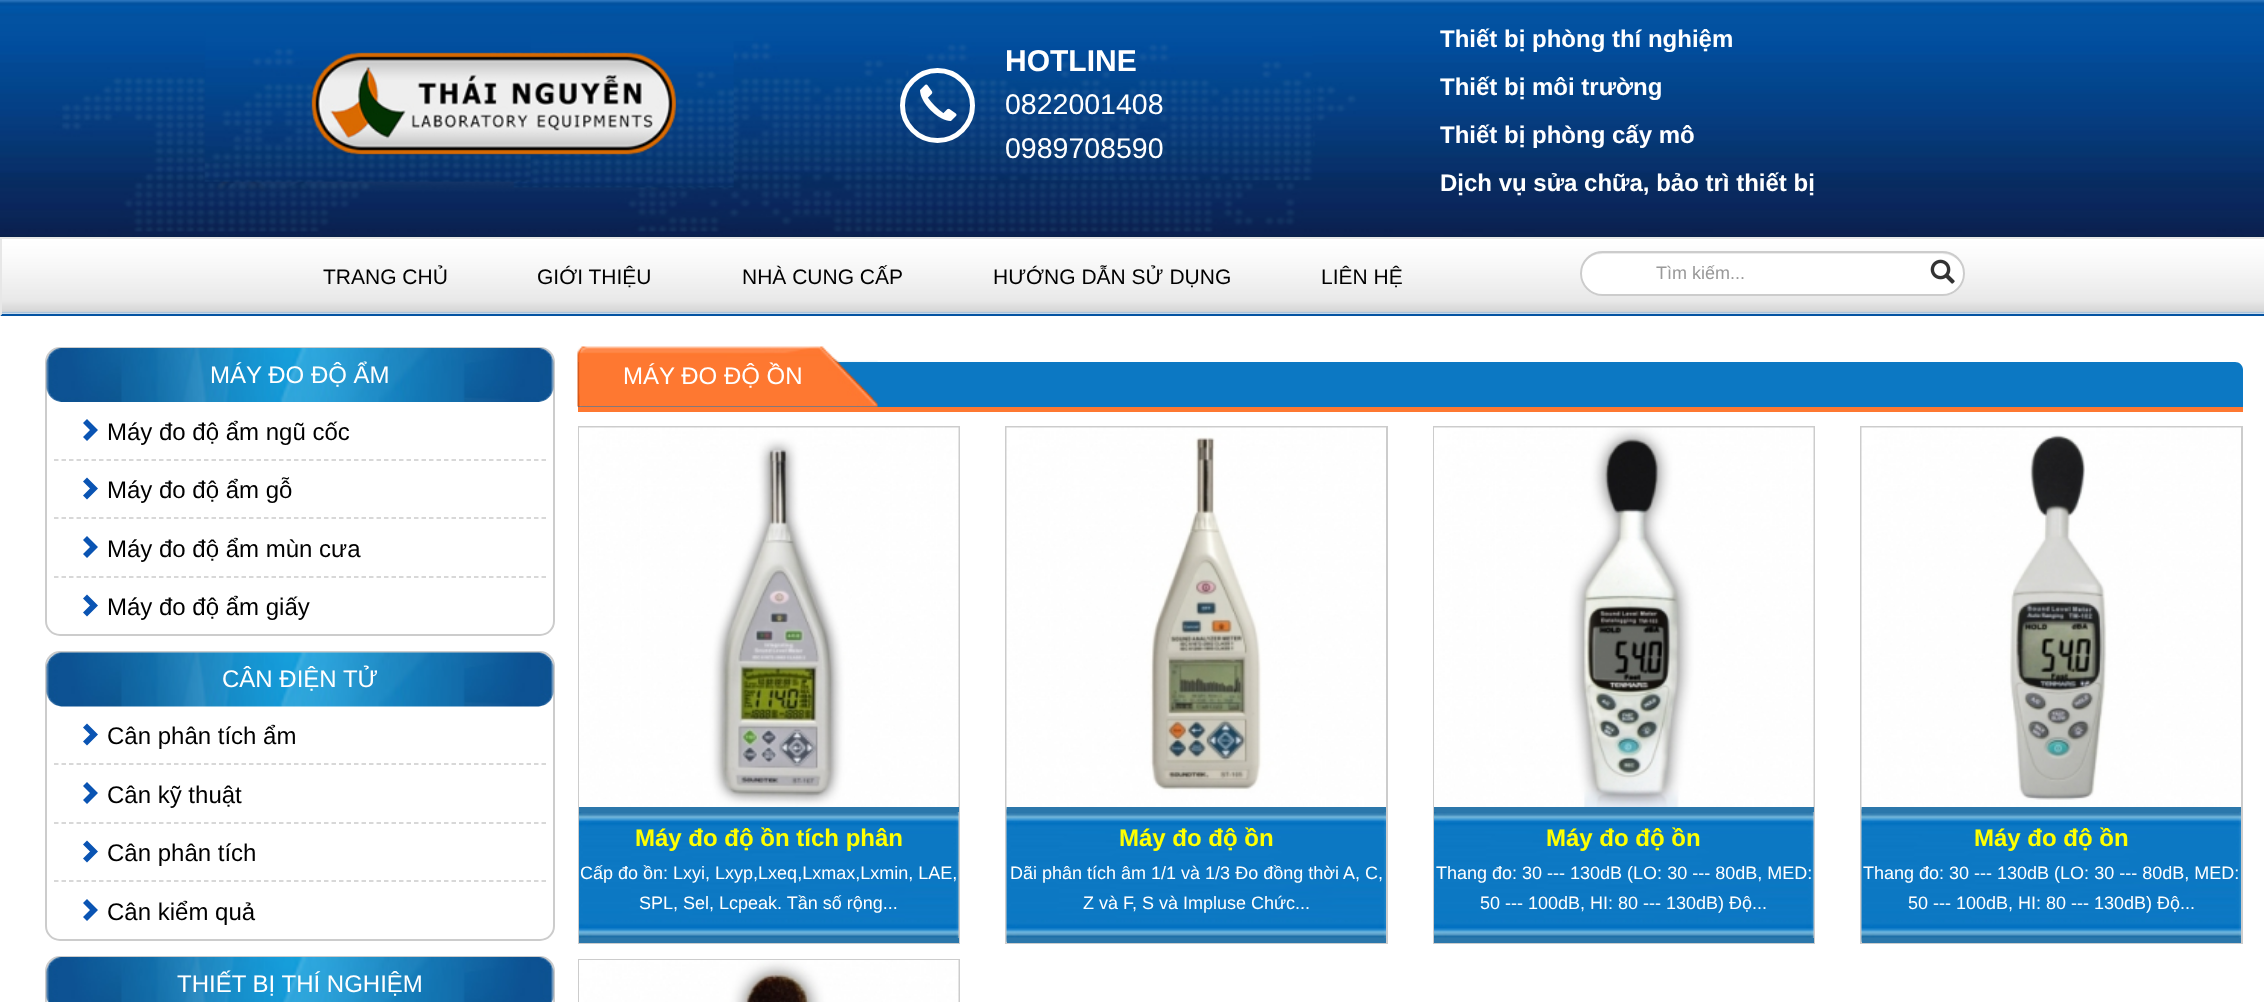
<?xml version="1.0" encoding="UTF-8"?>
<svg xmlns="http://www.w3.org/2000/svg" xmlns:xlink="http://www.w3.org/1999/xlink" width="2264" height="1002">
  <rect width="100%" height="100%" fill="#ffffff" />
  <image x="0" y="0" width="2264" height="237" xlink:href="image1.png" />
  <image x="310" y="52" width="367" height="103" xlink:href="image2.png" />
  <circle cx="937.5" cy="105.5" r="35" fill="none" stroke="#ffffff" stroke-width="5" />
  <image x="920" y="84" width="37" height="37" xlink:href="image3.png" />
  <image x="2" y="239" width="2262" height="75" xlink:href="image4.png" />
  <rect y="237" width="2264" height="2" fill="#e7e7e7" />
  <path d="M 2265 316 h -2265 l 2 -2 h 2262 z" fill="#0453a2" />
  <path d="M 0 316 v -79 l 2 1 v 76 z" fill="#e7e7e7" />
  <rect x="1580" y="251" width="385" height="45" rx="22.5" fill="#ffffff" />
  <path d="M 1602 254 h 340 c 12 0 22 9 22 20 c 0 -12 -9 -22 -21 -22 h -341 c -12 0 -21 10 -21 22 c 0 -11 9 -20 21 -20 z" fill="#ececec" />
  <rect x="1581" y="252" width="383" height="43" rx="21.5" fill="none" stroke="#cccccc" stroke-width="2" />
  <image x="1930" y="259" width="25" height="25" xlink:href="image5.png" />
  <rect x="46" y="348" width="508" height="287" rx="14" fill="none" stroke="#cccccc" stroke-width="2" />
  <image x="46" y="348" width="508" height="54" xlink:href="image6.png" />
  <path d="M 54 460 h 492" fill="none" stroke="#cccccc" stroke-width="1.5" stroke-dasharray="4.5 3" />
  <path d="M 98 430 l -11 11 l -4 -4 l 7 -7 l -7 -7 l 4 -4 z" fill="#0a54b3" />
  <path d="M 54 518 h 492" fill="none" stroke="#cccccc" stroke-width="1.5" stroke-dasharray="4.5 3" />
  <path d="M 98 488.5 l -11 11 l -4 -4 l 7 -7 l -7 -7 l 4 -4 z" fill="#0a54b3" />
  <path d="M 54 577 h 492" fill="none" stroke="#cccccc" stroke-width="1.5" stroke-dasharray="4.5 3" />
  <path d="M 98 547 l -11 11 l -4 -4 l 7 -7 l -7 -7 l 4 -4 z" fill="#0a54b3" />
  <path d="M 98 605.5 l -11 11 l -4 -4 l 7 -7 l -7 -7 l 4 -4 z" fill="#0a54b3" />
  <rect x="46" y="652" width="508" height="288" rx="14" fill="none" stroke="#cccccc" stroke-width="2" />
  <image x="46" y="652" width="508" height="55" xlink:href="image7.png" />
  <path d="M 54 764 h 492" fill="none" stroke="#cccccc" stroke-width="1.5" stroke-dasharray="4.5 3" />
  <path d="M 98 734.5 l -11 11 l -4 -4 l 7 -7 l -7 -7 l 4 -4 z" fill="#0a54b3" />
  <path d="M 54 823 h 492" fill="none" stroke="#cccccc" stroke-width="1.5" stroke-dasharray="4.5 3" />
  <path d="M 98 793 l -11 11 l -4 -4 l 7 -7 l -7 -7 l 4 -4 z" fill="#0a54b3" />
  <path d="M 54 881 h 492" fill="none" stroke="#cccccc" stroke-width="1.5" stroke-dasharray="4.5 3" />
  <path d="M 98 851.5 l -11 11 l -4 -4 l 7 -7 l -7 -7 l 4 -4 z" fill="#0a54b3" />
  <path d="M 98 910 l -11 11 l -4 -4 l 7 -7 l -7 -7 l 4 -4 z" fill="#0a54b3" />
  <rect x="46" y="957" width="508" height="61" rx="14" fill="none" stroke="#cccccc" stroke-width="2" />
  <image x="46" y="957" width="508" height="45" xlink:href="image8.png" />
  <path d="M 578 362 h 1657 c 4.5 0 8 3.5 8 8 v 41 h -1665 z" fill="#0c78c3" />
  <rect x="578" y="407" width="1665" height="5" fill="#fe7831" />
  <image x="577" y="346" width="301" height="61" xlink:href="image9.png" />
  <rect x="579" y="427" width="380" height="516" fill="none" stroke="#cccccc" stroke-width="2" />
  <image x="579" y="427" width="380" height="380" xlink:href="image10.png" />
  <image x="579" y="812" width="380" height="126" xlink:href="image11.png" />
  <rect x="579" y="807" width="380" height="5" fill="#2b77ab" />
  <rect x="579" y="938" width="380" height="5" fill="#2b77ab" />
  <rect x="1006" y="427" width="381" height="516" fill="none" stroke="#cccccc" stroke-width="2" />
  <image x="1006" y="427" width="380" height="380" xlink:href="image12.png" />
  <image x="1006" y="807" width="380" height="135" xlink:href="image13.png" />
  <rect x="1007" y="807" width="379" height="5" fill="#2b77ab" />
  <rect x="1007" y="938" width="379" height="5" fill="#2b77ab" />
  <rect x="1434" y="427" width="380" height="516" fill="none" stroke="#cccccc" stroke-width="2" />
  <image x="1434" y="427" width="380" height="380" xlink:href="image14.png" />
  <image x="1434" y="812" width="380" height="126" xlink:href="image15.png" />
  <rect x="1434" y="807" width="380" height="5" fill="#2b77ab" />
  <rect x="1434" y="938" width="380" height="5" fill="#2b77ab" />
  <rect x="1861" y="427" width="381" height="516" fill="none" stroke="#cccccc" stroke-width="2" />
  <image x="1861" y="427" width="380" height="380" xlink:href="image16.png" />
  <image x="1861" y="807" width="380" height="135" xlink:href="image17.png" />
  <rect x="1862" y="807" width="379" height="5" fill="#2b77ab" />
  <rect x="1862" y="938" width="379" height="5" fill="#2b77ab" />
  <rect x="579" y="960" width="380" height="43" fill="none" stroke="#cccccc" stroke-width="2" />
  <image x="579" y="960" width="380" height="42" xlink:href="image18.png" />
  <text x="1005" y="71" style="font-family: Liberation Sans; font-size: 30px; font-weight: bold; fill: #ffffff">HOTLINE</text>
  <text x="1005" y="114" style="font-family: Liberation Sans; font-size: 28.5px; fill: #ffffff">0822001408</text>
  <text x="1005" y="158" style="font-family: Liberation Sans; font-size: 28.5px; fill: #ffffff">0989708590</text>
  <text x="1440" y="47" style="font-family: Liberation Sans; font-size: 24px; font-weight: bold; fill: #ffffff">Thiết bị phòng thí nghiệm</text>
  <text x="1440" y="95" style="font-family: Liberation Sans; font-size: 24px; font-weight: bold; fill: #ffffff">Thiết bị môi trường</text>
  <text x="1440" y="143" style="font-family: Liberation Sans; font-size: 24px; font-weight: bold; fill: #ffffff">Thiết bị phòng cấy mô</text>
  <text x="1440" y="191" style="font-family: Liberation Sans; font-size: 24px; font-weight: bold; fill: #ffffff">Dịch vụ sửa chữa, bảo trì thiết bị</text>
  <text x="323" y="284" style="font-family: Liberation Sans; font-size: 21px; fill: #000000">TRANG CHỦ</text>
  <text x="537" y="284" style="font-family: Liberation Sans; font-size: 21px; fill: #000000">GIỚI THIỆU</text>
  <text x="742" y="284" style="font-family: Liberation Sans; font-size: 21px; fill: #000000">NHÀ CUNG CẤP</text>
  <text x="993" y="284" style="font-family: Liberation Sans; font-size: 21px; fill: #000000">HƯỚNG DẪN SỬ DỤNG</text>
  <text x="1321" y="284" style="font-family: Liberation Sans; font-size: 21px; fill: #000000">LIÊN HỆ</text>
  <text x="1656" y="279" style="font-family: Liberation Sans; font-size: 18px; fill: #999999">Tìm kiếm...</text>
  <text x="210" y="383" style="font-family: Liberation Sans; font-size: 24px; fill: #ffffff">MÁY ĐO ĐỘ ẨM</text>
  <text x="107" y="440" style="font-family: Liberation Sans; font-size: 24px; fill: #000000">Máy đo độ ẩm ngũ cốc</text>
  <text x="107" y="498" style="font-family: Liberation Sans; font-size: 24px; fill: #000000">Máy đo độ ẩm gỗ</text>
  <text x="107" y="557" style="font-family: Liberation Sans; font-size: 24px; fill: #000000">Máy đo độ ẩm mùn cưa</text>
  <text x="107" y="615" style="font-family: Liberation Sans; font-size: 24px; fill: #000000">Máy đo độ ẩm giấy</text>
  <text x="222" y="687" style="font-family: Liberation Sans; font-size: 24px; fill: #ffffff">CÂN ĐIỆN TỬ</text>
  <text x="107" y="744" style="font-family: Liberation Sans; font-size: 24px; fill: #000000">Cân phân tích ẩm</text>
  <text x="107" y="803" style="font-family: Liberation Sans; font-size: 24px; fill: #000000">Cân kỹ thuật</text>
  <text x="107" y="861" style="font-family: Liberation Sans; font-size: 24px; fill: #000000">Cân phân tích</text>
  <text x="107" y="920" style="font-family: Liberation Sans; font-size: 24px; fill: #000000">Cân kiểm quả</text>
  <text x="177" y="992" style="font-family: Liberation Sans; font-size: 24px; fill: #ffffff">THIẾT BỊ THÍ NGHIỆM</text>
  <text x="623" y="384" style="font-family: Liberation Sans; font-size: 24px; fill: #ffffff">MÁY ĐO ĐỘ ỒN</text>
  <text x="635" y="846" style="font-family: Liberation Sans; font-size: 24px; font-weight: bold; fill: #ffff01">Máy đo độ ồn tích phân</text>
  <text x="580" y="879" style="font-family: Liberation Sans; font-size: 18px; fill: #ffffff">Cấp đo ồn: Lxyi, Lxyp,Lxeq,Lxmax,Lxmin, LAE,</text>
  <text x="639" y="909" style="font-family: Liberation Sans; font-size: 18px; fill: #ffffff">SPL, Sel, Lcpeak. Tần số rộng...</text>
  <text x="1119" y="846" style="font-family: Liberation Sans; font-size: 24px; font-weight: bold; fill: #ffff01">Máy đo độ ồn</text>
  <text x="1010" y="879" style="font-family: Liberation Sans; font-size: 18px; fill: #ffffff">Dãi phân tích âm 1/1 và 1/3 Đo đồng thời A, C,</text>
  <text x="1083" y="909" style="font-family: Liberation Sans; font-size: 18px; fill: #ffffff">Z và F, S và Impluse Chức...</text>
  <text x="1546" y="846" style="font-family: Liberation Sans; font-size: 24px; font-weight: bold; fill: #ffff01">Máy đo độ ồn</text>
  <text x="1436" y="879" style="font-family: Liberation Sans; font-size: 18px; fill: #ffffff">Thang đo: 30 --- 130dB (LO: 30 --- 80dB, MED:</text>
  <text x="1480" y="909" style="font-family: Liberation Sans; font-size: 18px; fill: #ffffff">50 --- 100dB, HI: 80 --- 130dB) Độ...</text>
  <text x="1974" y="846" style="font-family: Liberation Sans; font-size: 24px; font-weight: bold; fill: #ffff01">Máy đo độ ồn</text>
  <text x="1863" y="879" style="font-family: Liberation Sans; font-size: 18px; fill: #ffffff">Thang đo: 30 --- 130dB (LO: 30 --- 80dB, MED:</text>
  <text x="1908" y="909" style="font-family: Liberation Sans; font-size: 18px; fill: #ffffff">50 --- 100dB, HI: 80 --- 130dB) Độ...</text>
</svg>
